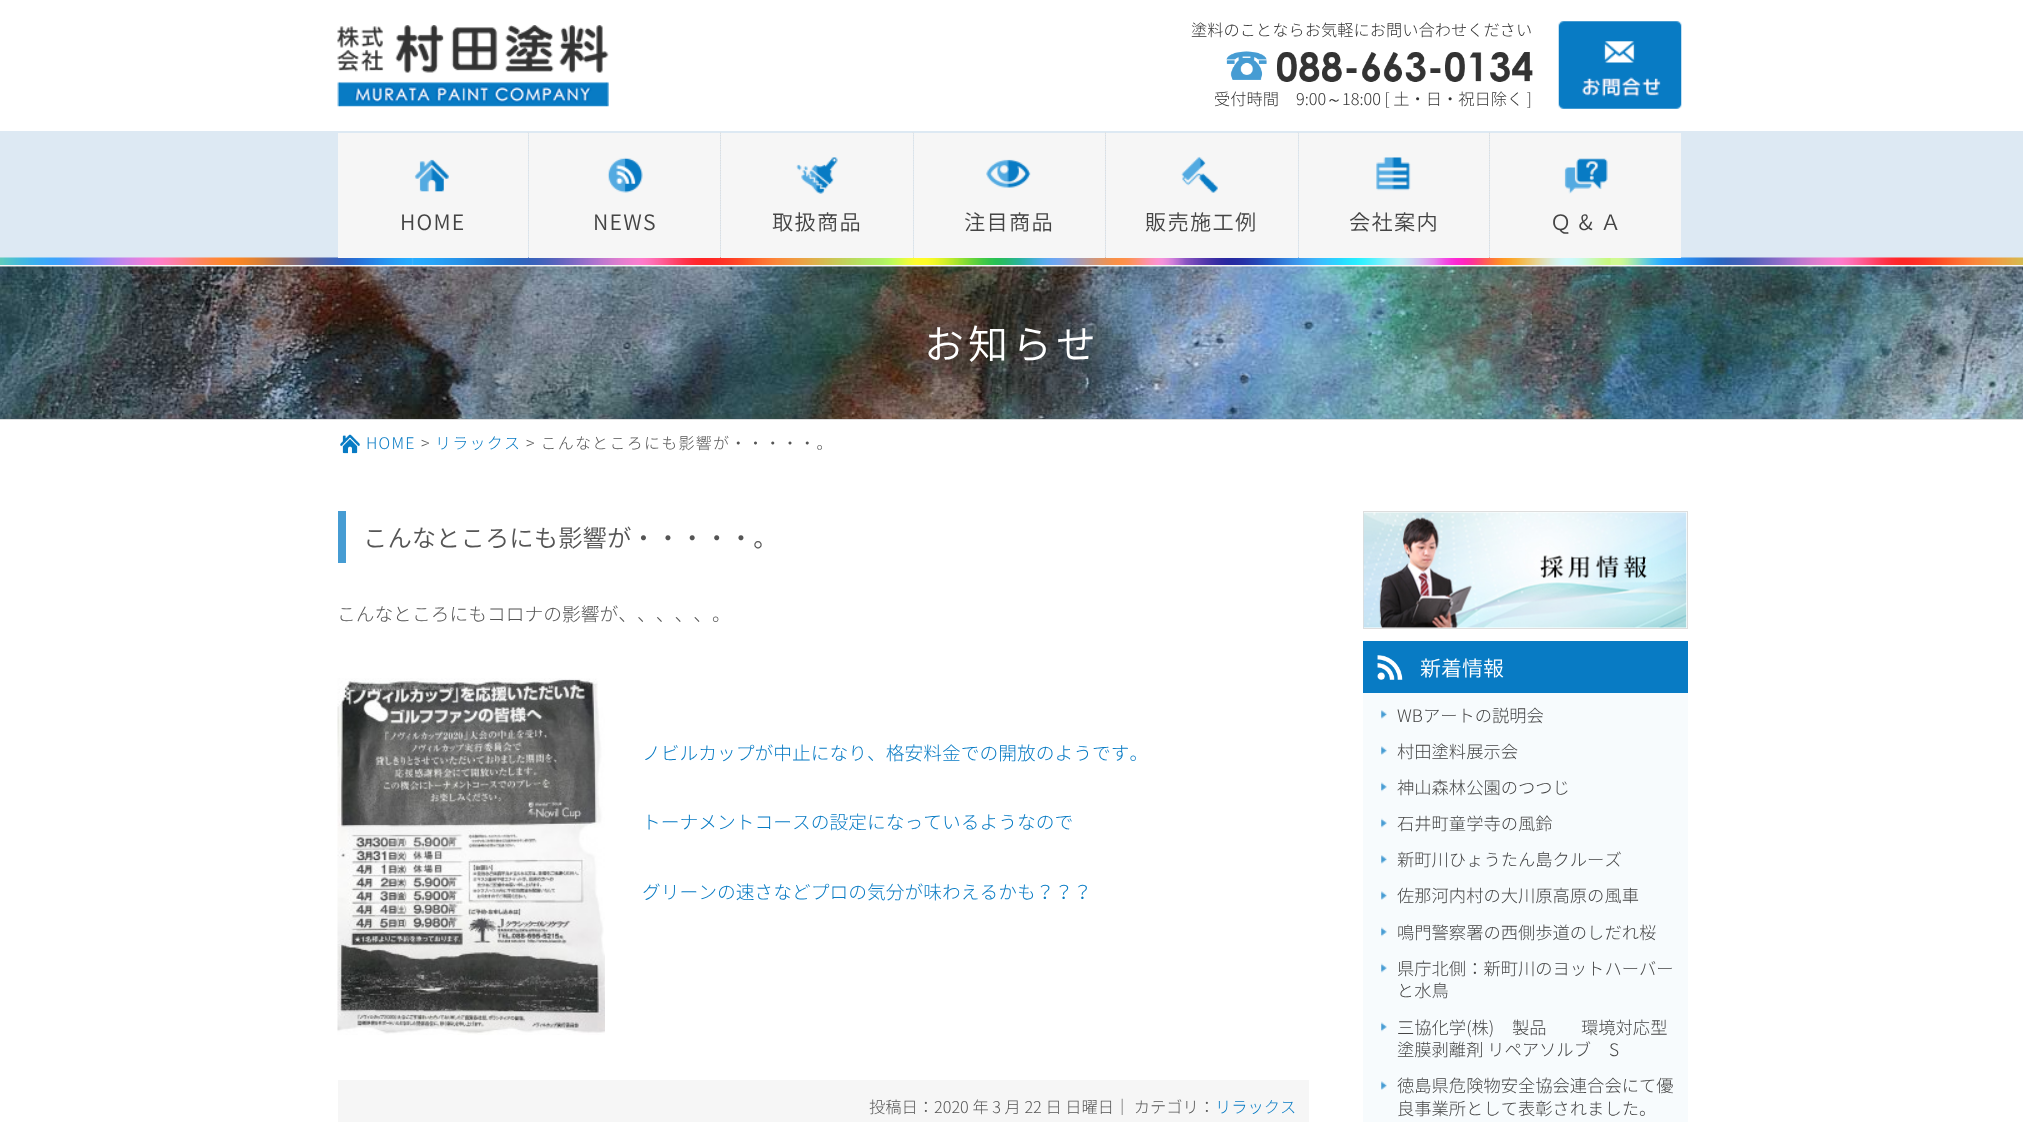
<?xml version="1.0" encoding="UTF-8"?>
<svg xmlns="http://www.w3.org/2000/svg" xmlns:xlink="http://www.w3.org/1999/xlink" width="2023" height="1122">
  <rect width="100%" height="100%" fill="#ffffff" />
  <image x="337" y="25" width="272" height="82" xlink:href="image1.png" />
  <image x="1226" y="51" width="307" height="31" xlink:href="image2.png" />
  <image x="1558" y="21" width="124" height="88" xlink:href="image3.png" />
  <rect y="131" width="2023" height="134" fill="#dde9f3" />
  <image x="0" y="257" width="2023" height="8" xlink:href="image4.png" />
  <rect y="265" width="2023" height="1" fill="#f6f6f6" />
  <path d="M 528 132.5 v 125" fill="none" stroke="#dddddd" stroke-width="1.2" stroke-dasharray="1.25 1.25" />
  <rect x="338" y="133" width="190" height="125" fill="#f6f6f6" />
  <image x="414" y="159" width="35" height="33" xlink:href="image5.png" />
  <path d="M 720.5 132.5 v 125" fill="none" stroke="#dddddd" stroke-width="1.2" stroke-dasharray="1.25 1.25" />
  <rect x="529" y="133" width="191" height="125" fill="#f6f6f6" />
  <image x="607" y="157" width="36" height="36" xlink:href="image6.png" />
  <path d="M 913 132.5 v 125" fill="none" stroke="#dddddd" stroke-width="1.2" stroke-dasharray="1.25 1.25" />
  <rect x="721" y="133" width="192" height="125" fill="#f6f6f6" />
  <image x="796" y="157" width="42" height="37" xlink:href="image7.png" />
  <path d="M 1105.5 132.5 v 125" fill="none" stroke="#dddddd" stroke-width="1.2" stroke-dasharray="1.25 1.25" />
  <rect x="914" y="133" width="191" height="125" fill="#f6f6f6" />
  <image x="986" y="159" width="45" height="29" xlink:href="image8.png" />
  <path d="M 1298 132.5 v 125" fill="none" stroke="#dddddd" stroke-width="1.2" stroke-dasharray="1.25 1.25" />
  <rect x="1106" y="133" width="192" height="125" fill="#f6f6f6" />
  <image x="1181" y="156" width="37" height="37" xlink:href="image9.png" />
  <path d="M 1489.5 132.5 v 125" fill="none" stroke="#dddddd" stroke-width="1.2" stroke-dasharray="1.25 1.25" />
  <rect x="1299" y="133" width="190" height="125" fill="#f6f6f6" />
  <image x="1376" y="157" width="35" height="34" xlink:href="image10.png" />
  <rect x="1490" y="133" width="191" height="125" fill="#f6f6f6" />
  <image x="1564" y="158" width="44" height="36" xlink:href="image11.png" />
  <image x="0" y="266" width="2023" height="153" xlink:href="image12.png" />
  <rect y="419" width="2023" height="1" fill="#dddddd" />
  <image x="340" y="434" width="20" height="20" xlink:href="image13.png" />
  <rect x="338" y="511" width="8" height="52" fill="#469cd3" />
  <image x="337" y="678" width="268" height="357" xlink:href="image14.png" />
  <rect x="338" y="1080" width="971" height="42" fill="#f6f6f6" />
  <rect x="1363.5" y="511.5" width="324" height="117" fill="none" stroke="#dddddd" />
  <image x="1363" y="512" width="324" height="116" xlink:href="image15.png" />
  <rect x="1363" y="693" width="325" height="429" fill="#f7fbfd" />
  <rect x="1363" y="641" width="325" height="52" fill="#087bc4" />
  <image x="1377" y="655" width="26" height="25" xlink:href="image16.png" />
  <image x="1381" y="710" width="6" height="9" xlink:href="image17.png" />
  <image x="1381" y="746" width="6" height="9" xlink:href="image18.png" />
  <image x="1381" y="782" width="6" height="10" xlink:href="image19.png" />
  <image x="1381" y="818" width="6" height="10" xlink:href="image20.png" />
  <image x="1381" y="855" width="6" height="9" xlink:href="image17.png" />
  <image x="1381" y="891" width="6" height="9" xlink:href="image18.png" />
  <image x="1381" y="927" width="6" height="10" xlink:href="image19.png" />
  <image x="1381" y="963" width="6" height="10" xlink:href="image20.png" />
  <image x="1381" y="1022" width="6" height="10" xlink:href="image21.png" />
  <image x="1381" y="1081" width="6" height="9" xlink:href="image18.png" />
  <text x="1191" y="36" style="font-family: Noto Sans CJK JP; font-size: 16.25px; font-weight: 300; fill: #333333">塗料のことならお気軽にお問い合わせください</text>
  <text x="1214" y="105" style="font-family: Noto Sans CJK JP; font-size: 16.25px; font-weight: 300; fill: #333333">受付時間</text>
  <text x="1296" y="105" style="font-family: Noto Sans CJK JP; font-size: 16.25px; font-weight: 300; fill: #333333">9:00</text>
  <text x="1326" y="105" style="font-family: WenQuanYi Zen Hei; font-size: 16.25px; font-weight: 500; fill: #333333">～</text>
  <text x="1342" y="105" style="font-family: Noto Sans CJK JP; font-size: 16.25px; font-weight: 300; fill: #333333">18:00 [ 土・日・祝日除く ]</text>
  <text x="400" y="230" style="font-family: 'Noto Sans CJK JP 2'; font-size: 21.25px; font-weight: 300; letter-spacing: 1.25px; fill: #444444">HOME</text>
  <text x="593" y="230" style="font-family: 'Noto Sans CJK JP 2'; font-size: 21.25px; font-weight: 300; letter-spacing: 1.25px; fill: #444444">NEWS</text>
  <text x="772" y="230" style="font-family: 'Noto Sans CJK JP 2'; font-size: 21.25px; font-weight: 300; letter-spacing: 1.25px; fill: #444444">取扱商品</text>
  <text x="964" y="230" style="font-family: 'Noto Sans CJK JP 2'; font-size: 21.25px; font-weight: 300; letter-spacing: 1.25px; fill: #444444">注目商品</text>
  <text x="1145" y="230" style="font-family: 'Noto Sans CJK JP 2'; font-size: 21.25px; font-weight: 300; letter-spacing: 1.25px; fill: #444444">販売施工例</text>
  <text x="1349" y="230" style="font-family: 'Noto Sans CJK JP 2'; font-size: 21.25px; font-weight: 300; letter-spacing: 1.25px; fill: #444444">会社案内</text>
  <text x="1550" y="230" style="font-family: 'Noto Sans CJK JP 2'; font-size: 21.25px; font-weight: 300; letter-spacing: 1.25px; fill: #444444">Ｑ &amp; Ａ</text>
  <text x="924" y="359" style="font-family: 'Noto Sans CJK JP 2'; font-size: 40px; font-weight: 300; letter-spacing: 4px; fill: #ffffff">お知らせ</text>
  <text x="366" y="449" style="font-family: Noto Sans CJK JP; font-size: 16px; font-weight: 300; letter-spacing: 1.25px; fill: #087bc4">HOME</text>
  <text x="421" y="449" style="font-family: Noto Sans CJK JP; font-size: 16px; font-weight: 300; letter-spacing: 1.25px; fill: #555555">&gt;</text>
  <text x="435" y="449" style="font-family: Noto Sans CJK JP; font-size: 16px; font-weight: 300; letter-spacing: 1.25px; fill: #087bc4">リラックス</text>
  <text x="526" y="449" style="font-family: Noto Sans CJK JP; font-size: 16px; font-weight: 300; letter-spacing: 1.25px; fill: #555555">&gt; こんなところにも影響が・・・・・。</text>
  <text x="363" y="547" style="font-family: 'Noto Sans CJK JP 2'; font-size: 24.4px; font-weight: 300; fill: #555555">こんなところにも影響が・・・・・。</text>
  <text x="337" y="621" style="font-family: Noto Sans CJK JP; font-size: 18.75px; font-weight: 300; fill: #555555">こんなところにもコロナの影響が、、、、、。</text>
  <text x="642" y="760" style="font-family: Noto Sans CJK JP; font-size: 18.75px; font-weight: 300; fill: #087bc4">ノビルカップが中止になり、格安料金での開放のようです。</text>
  <text x="642" y="829" style="font-family: Noto Sans CJK JP; font-size: 18.75px; font-weight: 300; fill: #087bc4">トーナメントコースの設定になっているようなので</text>
  <text x="642" y="899" style="font-family: Noto Sans CJK JP; font-size: 18.75px; font-weight: 300; fill: #087bc4">グリーンの速さなどプロの気分が味わえるかも？？？</text>
  <text x="869" y="1113" style="font-family: Noto Sans CJK JP; font-size: 16.25px; font-weight: 300; fill: #555555">投稿日：2020 年 3 月 22 日 日曜日｜ カテゴリ：</text>
  <text x="1215" y="1113" style="font-family: Noto Sans CJK JP; font-size: 16.25px; font-weight: 300; fill: #087bc4">リラックス</text>
  <text x="1420" y="676" style="font-family: 'Noto Sans CJK JP 2'; font-size: 21px; font-weight: 300; fill: #ffffff">新着情報</text>
  <text x="1397" y="722" style="font-family: Noto Sans CJK JP; font-size: 17.3px; font-weight: 300; fill: #444444">WBアートの説明会</text>
  <text x="1397" y="758" style="font-family: Noto Sans CJK JP; font-size: 17.3px; font-weight: 300; fill: #444444">村田塗料展示会</text>
  <text x="1397" y="794" style="font-family: Noto Sans CJK JP; font-size: 17.3px; font-weight: 300; fill: #444444">神山森林公園のつつじ</text>
  <text x="1397" y="830" style="font-family: Noto Sans CJK JP; font-size: 17.3px; font-weight: 300; fill: #444444">石井町童学寺の風鈴</text>
  <text x="1397" y="866" style="font-family: Noto Sans CJK JP; font-size: 17.3px; font-weight: 300; fill: #444444">新町川ひょうたん島クルーズ</text>
  <text x="1397" y="902" style="font-family: Noto Sans CJK JP; font-size: 17.3px; font-weight: 300; fill: #444444">佐那河内村の大川原高原の風車</text>
  <text x="1397" y="939" style="font-family: Noto Sans CJK JP; font-size: 17.3px; font-weight: 300; fill: #444444">鳴門警察署の西側歩道のしだれ桜</text>
  <text x="1397" y="975" style="font-family: Noto Sans CJK JP; font-size: 17.3px; font-weight: 300; fill: #444444">県庁北側：新町川のヨットハーバー</text>
  <text x="1397" y="997" style="font-family: Noto Sans CJK JP; font-size: 17.3px; font-weight: 300; fill: #444444">と水鳥</text>
  <text x="1397" y="1034" style="font-family: Noto Sans CJK JP; font-size: 17.3px; font-weight: 300; fill: #444444">三協化学(株)</text>
  <text x="1512" y="1034" style="font-family: Noto Sans CJK JP; font-size: 17.3px; font-weight: 300; fill: #444444">製品</text>
  <text x="1581" y="1034" style="font-family: Noto Sans CJK JP; font-size: 17.3px; font-weight: 300; fill: #444444">環境対応型</text>
  <text x="1397" y="1056" style="font-family: Noto Sans CJK JP; font-size: 17.3px; font-weight: 300; fill: #444444">塗膜剥離剤 リペアソルブ</text>
  <text x="1609" y="1056" style="font-family: Noto Sans CJK JP; font-size: 17.3px; font-weight: 300; fill: #444444">S</text>
  <text x="1397" y="1092" style="font-family: Noto Sans CJK JP; font-size: 17.3px; font-weight: 300; fill: #444444">徳島県危険物安全協会連合会にて優</text>
  <text x="1397" y="1115" style="font-family: Noto Sans CJK JP; font-size: 17.3px; font-weight: 300; fill: #444444">良事業所として表彰されました。</text>
</svg>
